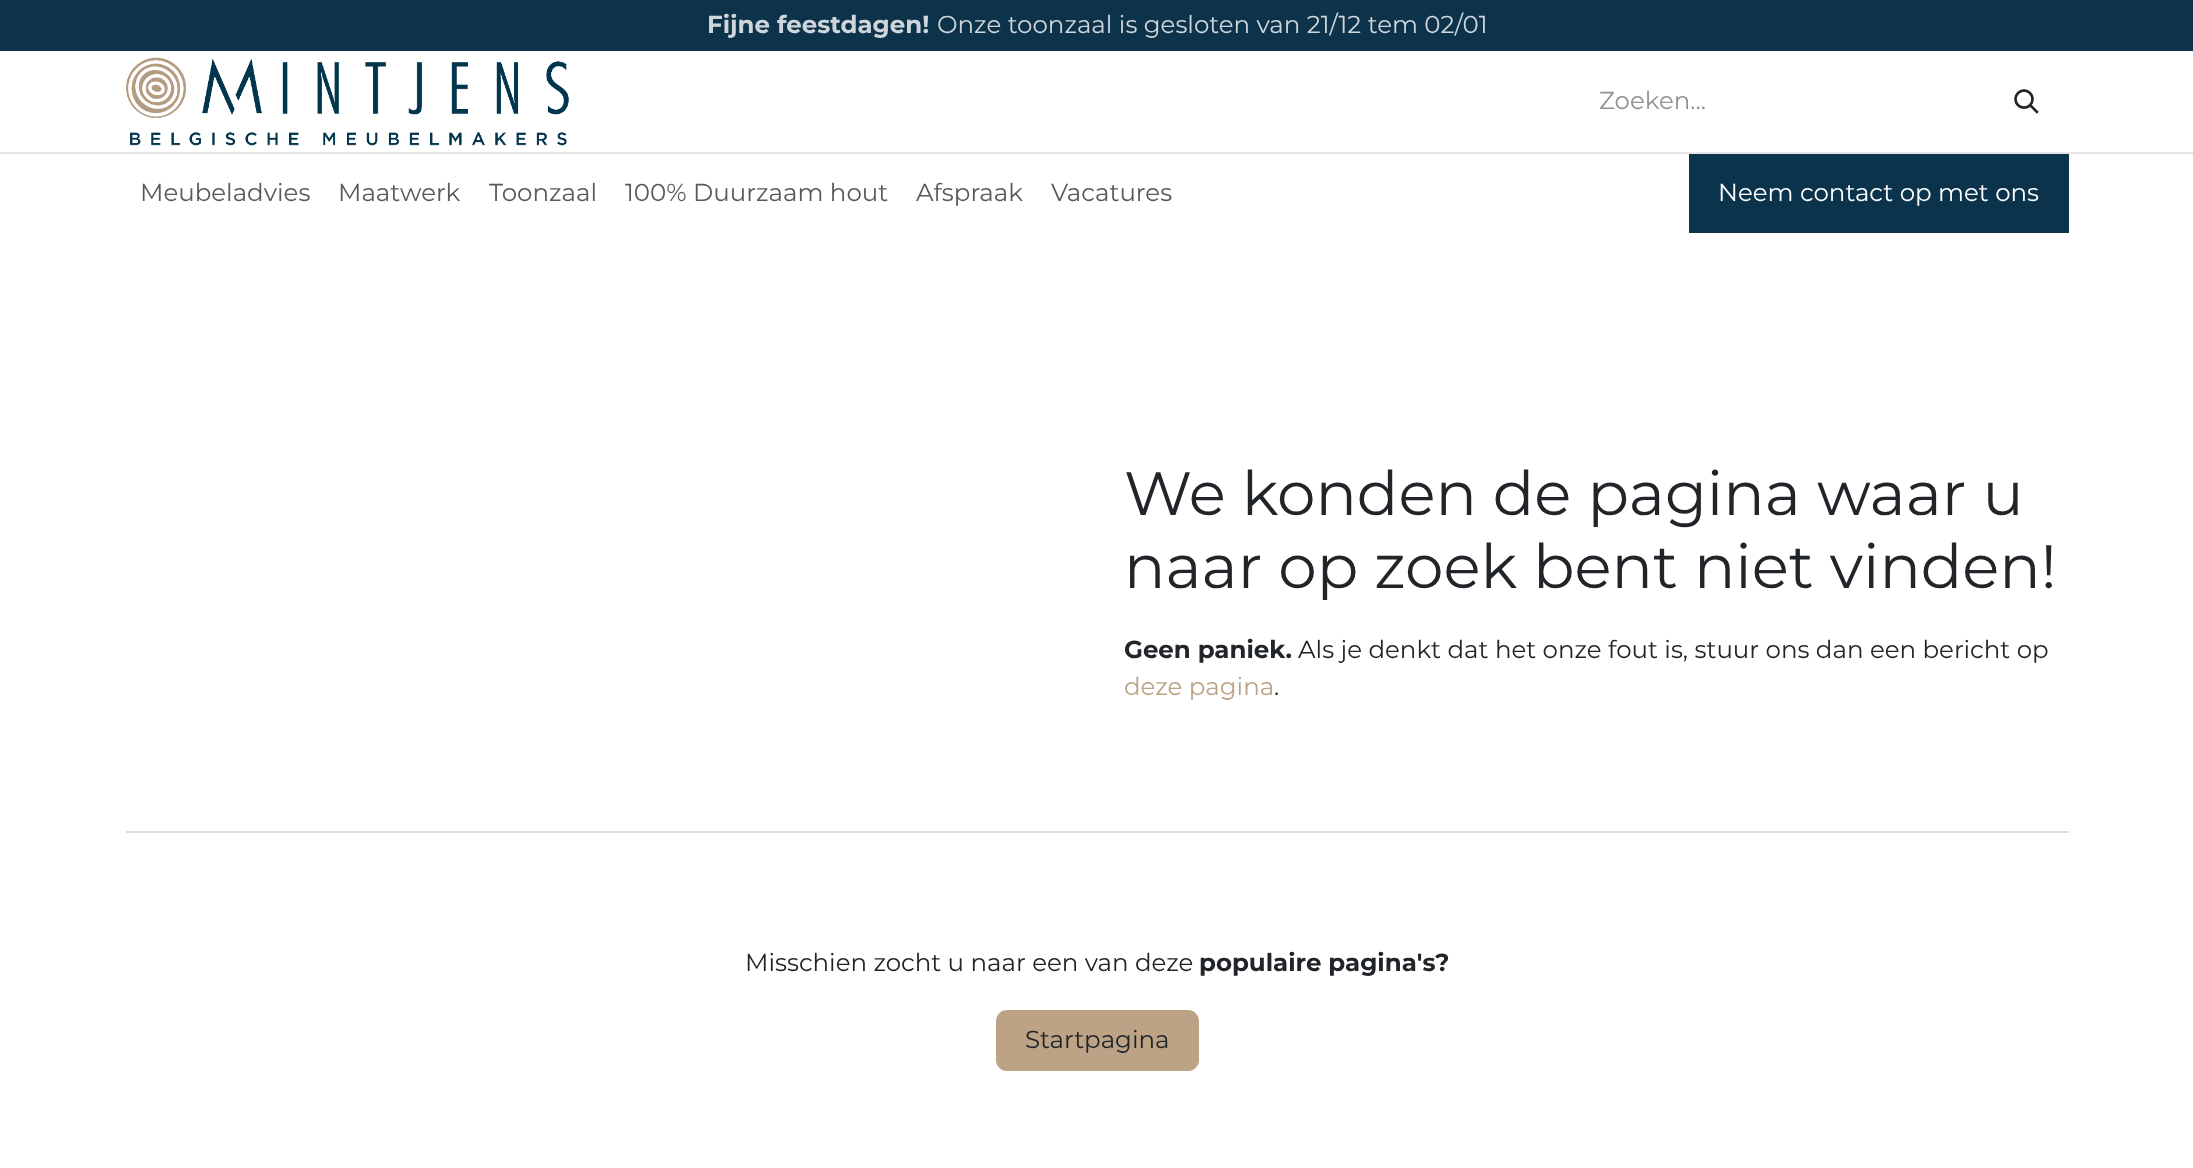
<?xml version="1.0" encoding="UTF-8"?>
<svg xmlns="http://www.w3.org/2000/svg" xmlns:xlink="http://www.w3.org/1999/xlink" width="2193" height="1168">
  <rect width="100%" height="100%" fill="#ffffff" />
  <rect width="2193" height="51" fill="#0d334b" />
  <image x="126" y="57" width="443" height="89" xlink:href="image1.png" />
  <image x="2014" y="89" width="25" height="25" xlink:href="image2.png" />
  <rect y="152" width="2193" height="2" fill="#e6e6e6" />
  <rect x="1689" y="154" width="380" height="79" fill="#0b344c" />
  <rect x="126" y="831" width="1943" height="2" fill="#dededf" />
  <rect x="997" y="1011" width="201" height="59" rx="10" fill="#bda385" stroke="#bda385" stroke-width="2" />
  <text x="707" y="33" style="font-family: Montserrat; font-size: 24.5px; font-weight: bold; fill: #cfd6db">Fijne feestdagen!</text>
  <text x="937" y="33" style="font-family: Montserrat; font-size: 24.5px; fill: #cfd6db">Onze toonzaal is gesloten van 21/12 tem 02/01</text>
  <text x="1599" y="109" style="font-family: Montserrat; font-size: 24.5px; fill: #909294">Zoeken...</text>
  <text x="140" y="201" style="font-family: Montserrat; font-size: 24.5px; fill: #595959">Meubeladvies</text>
  <text x="338" y="201" style="font-family: Montserrat; font-size: 24.5px; fill: #595959">Maatwerk</text>
  <text x="489" y="201" style="font-family: Montserrat; font-size: 24.5px; fill: #595959">Toonzaal</text>
  <text x="625" y="201" style="font-family: Montserrat; font-size: 24.5px; fill: #595959">100% Duurzaam hout</text>
  <text x="916" y="201" style="font-family: Montserrat; font-size: 24.5px; fill: #595959">Afspraak</text>
  <text x="1051" y="201" style="font-family: Montserrat; font-size: 24.5px; fill: #595959">Vacatures</text>
  <text x="1718" y="201" style="font-family: Montserrat; font-size: 24.5px; fill: #ffffff">Neem contact op met ons</text>
  <text x="1124" y="515" style="font-family: Montserrat; font-size: 61.25px; fill: #212529">We konden de pagina waar u</text>
  <text x="1124" y="588" style="font-family: Montserrat; font-size: 61.25px; fill: #212529">naar op zoek bent niet vinden!</text>
  <text x="1124" y="658" style="font-family: Montserrat; font-size: 24.5px; font-weight: bold; fill: #212529">Geen paniek.</text>
  <text x="1298" y="658" style="font-family: Montserrat; font-size: 24.5px; fill: #212529">Als je denkt dat het onze fout is, stuur ons dan een bericht op</text>
  <text x="1124" y="695" style="font-family: Montserrat; font-size: 24.5px; fill: #bda385">deze pagina</text>
  <text x="1274" y="695" style="font-family: Montserrat; font-size: 24.5px; fill: #212529">.</text>
  <text x="745" y="971" style="font-family: Montserrat; font-size: 24.5px; fill: #212529">Misschien zocht u naar een van deze</text>
  <text x="1199" y="971" style="font-family: Montserrat; font-size: 24.5px; font-weight: bold; fill: #212529">populaire pagina's?</text>
  <text x="1025" y="1048" style="font-family: Montserrat; font-size: 24.5px; fill: #212529">Startpagina</text>
</svg>
